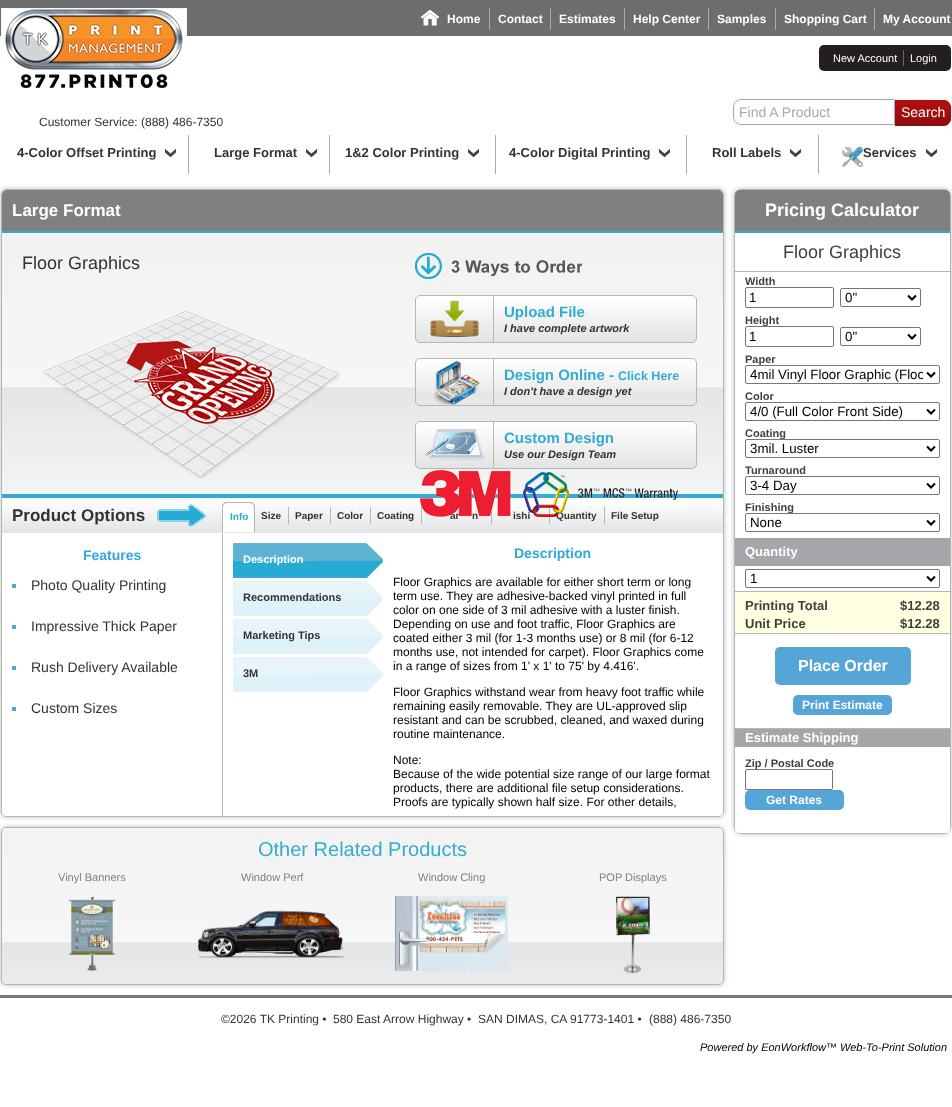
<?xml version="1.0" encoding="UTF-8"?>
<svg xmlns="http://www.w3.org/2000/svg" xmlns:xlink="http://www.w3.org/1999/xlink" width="952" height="1107">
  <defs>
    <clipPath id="clip1"><path d="M 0 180 h 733 v 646 h -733 z m 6 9 h 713 c 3 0 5 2 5 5 v 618 c 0 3 -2 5 -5 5 h -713 c -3 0 -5 -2 -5 -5 v -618 c 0 -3 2 -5 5 -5 z" clip-rule="evenodd" /></clipPath>
    <clipPath id="clip2"><rect x="750" y="366" width="173" height="17" /></clipPath>
  </defs>
  <rect width="100%" height="100%" fill="#ffffff" />
  <rect width="952" height="36" fill="#6c6d6f" />
  <image x="1" y="8" width="186" height="80" xlink:href="image1.png" />
  <rect x="489" y="8" width="1" height="22" fill="#aaaaaa" />
  <image x="421" y="10" width="18" height="16" xlink:href="image2.png" />
  <rect x="550" y="8" width="1" height="22" fill="#aaaaaa" />
  <rect x="624" y="8" width="1" height="22" fill="#aaaaaa" />
  <rect x="708" y="8" width="1" height="22" fill="#aaaaaa" />
  <rect x="775" y="8" width="1" height="22" fill="#aaaaaa" />
  <rect x="874" y="8" width="1" height="22" fill="#aaaaaa" />
  <rect x="819" y="45" width="132" height="26" rx="5" fill="#231f20" />
  <rect x="903" y="50" width="1" height="16" fill="#666666" />
  <path d="M 741 99.5 h 153.5 v 25 h -153.5 c -4 0 -7.5 -3.5 -7.5 -7.5 v -10 c 0 -4 3.5 -7.5 7.5 -7.5 z" fill="none" stroke="#a7a7a7" />
  <path d="M 895 100 h 48 c 4.5 0 8 3.5 8 8 v 10 c 0 4.5 -3.5 8 -8 8 h -48 z" fill="#b10e10" />
  <image x="895" y="100" width="56" height="26" xlink:href="image3.png" />
  <image x="165" y="149" width="11" height="8" xlink:href="image4.png" />
  <rect x="188" y="135" width="1" height="39" fill="#aaaaaa" />
  <image x="306" y="149" width="11" height="8" xlink:href="image4.png" />
  <rect x="329" y="135" width="1" height="39" fill="#aaaaaa" />
  <image x="468" y="149" width="11" height="8" xlink:href="image4.png" />
  <rect x="495" y="135" width="1" height="39" fill="#aaaaaa" />
  <image x="659" y="149" width="11" height="8" xlink:href="image4.png" />
  <rect x="686" y="135" width="1" height="39" fill="#aaaaaa" />
  <image x="790" y="149" width="11" height="8" xlink:href="image4.png" />
  <rect x="818" y="135" width="1" height="39" fill="#aaaaaa" />
  <image x="842" y="147" width="21" height="20" xlink:href="image5.png" />
  <image x="926" y="149" width="11" height="8" xlink:href="image4.png" />
  <g clip-path="url(#clip1)">
    <rect x="1" y="189" width="723" height="628" rx="5" fill="#bbbbbb" filter="blur(2.5px)" />
  </g>
  <rect x="1.5" y="189.5" width="722" height="627" rx="4.5" fill="none" stroke="#b5b6b7" />
  <path d="M 7 190 h 711 c 3 0 5 2 5 5 v 38 h -721 v -38 c 0 -3 2 -5 5 -5 z" fill="#808080" />
  <rect x="2" y="231" width="721" height="2" fill="#34acd2" />
  <image x="2" y="233" width="721" height="261" xlink:href="image6.png" />
  <rect x="2" y="494" width="721" height="4" fill="#34acd2" />
  <image x="43" y="310" width="297" height="169" xlink:href="image7.png" />
  <image x="415" y="253" width="167" height="26" xlink:href="image8.png" />
  <image x="415" y="296" width="282" height="46" xlink:href="image9.png" />
  <rect x="415.5" y="295.5" width="281" height="47" rx="4.5" fill="none" stroke="#b5b6b7" />
  <rect x="493" y="296" width="1" height="46" fill="#b5b6b7" />
  <image x="428" y="301" width="52" height="36" xlink:href="image10.png" />
  <image x="415" y="359" width="282" height="34" xlink:href="image11.png" />
  <rect x="415.5" y="358.5" width="281" height="47" rx="4.5" fill="none" stroke="#b5b6b7" />
  <rect x="493" y="359" width="1" height="46" fill="#b5b6b7" />
  <image x="433" y="360" width="47" height="45" xlink:href="image12.png" />
  <image x="415" y="422" width="282" height="46" xlink:href="image13.png" />
  <rect x="415.5" y="421.5" width="281" height="47" rx="4.5" fill="none" stroke="#b5b6b7" />
  <rect x="493" y="422" width="1" height="46" fill="#b5b6b7" />
  <image x="425" y="429" width="59" height="32" xlink:href="image14.png" />
  <image x="2" y="504" width="220" height="29" xlink:href="image16.png" />
  <rect x="12" y="584" width="4" height="4" fill="#55a5d7" />
  <rect x="12" y="625" width="4" height="4" fill="#55a5d7" />
  <rect x="12" y="666" width="4" height="4" fill="#55a5d7" />
  <rect x="12" y="707" width="4" height="4" fill="#55a5d7" />
  <path d="M 222 498 h 501 v 313 c 0 3 -2 5 -5 5 h -496 z" fill="#ffffff" />
  <image x="222" y="505" width="501" height="28" xlink:href="image17.png" />
  <path d="M 227 502 h 23 c 3 0 5 2 5 5 v 25 h -33 v -25 c 0 -3 2 -5 5 -5 z" fill="#ffffff" />
  <path d="M 227 502 h 23 c 3 0 5 2 5 5 v 25 h -33 v -25 c 0 -3 2 -5 5 -5 z m 0 1 h 23 c 2 0 4 2 4 4 v 25 h -31 v -25 c 0 -2 2 -4 4 -4 z" fill="#b5b6b7" fill-rule="evenodd" />
  <rect x="288" y="507" width="1" height="17" fill="#b5b6b7" />
  <rect x="330" y="507" width="1" height="17" fill="#b5b6b7" />
  <rect x="370" y="507" width="1" height="17" fill="#b5b6b7" />
  <rect x="421" y="507" width="1" height="17" fill="#b5b6b7" />
  <rect x="491" y="507" width="1" height="17" fill="#b5b6b7" />
  <rect x="549" y="507" width="1" height="17" fill="#b5b6b7" />
  <rect x="604" y="507" width="1" height="17" fill="#b5b6b7" />
  <rect x="222" y="533" width="1" height="283" fill="#b5b6b7" />
  <image x="233" y="543" width="150" height="35" xlink:href="image18.png" />
  <image x="233" y="581" width="150" height="35" xlink:href="image19.png" />
  <image x="233" y="619" width="150" height="35" xlink:href="image19.png" />
  <image x="233" y="657" width="150" height="35" xlink:href="image19.png" />
  <rect x="1" y="827" width="723" height="158" rx="5" fill="#bbbbbb" filter="blur(2.5px)" />
  <rect x="1" y="827" width="723" height="158" rx="5" fill="#ededed" />
  <image x="1" y="827" width="723" height="155" xlink:href="image20.png" />
  <rect x="1.5" y="827.5" width="722" height="157" rx="4.5" fill="none" stroke="#b5b6b7" />
  <image x="69" y="896" width="47" height="75" xlink:href="image21.png" />
  <image x="198" y="910" width="147" height="48" xlink:href="image22.png" />
  <image x="395" y="896" width="113" height="75" xlink:href="image23.png" />
  <image x="616" y="896" width="34" height="78" xlink:href="image24.png" />
  <rect x="734" y="189" width="217" height="645" rx="8" fill="#bbbbbb" filter="blur(2.5px)" />
  <rect x="734" y="189" width="217" height="645" rx="8" fill="#b5b6b7" />
  <path d="M 740 190 h 205 c 3 0 5 2 5 5 v 38 h -215 v -38 c 0 -3 2 -5 5 -5 z" fill="#808080" />
  <rect x="735" y="231" width="215" height="2" fill="#34acd2" />
  <rect x="735" y="233" width="215" height="593" fill="#ffffff" />
  <rect x="735" y="271" width="216" height="1" fill="#b5b6b7" />
  <rect x="745.5" y="287.5" width="88" height="20" rx="1.5" fill="none" stroke="#767676" />
  <rect x="840.5" y="288.5" width="80" height="18" rx="1.5" fill="none" stroke="#767676" />
  <path d="M 908 295.5 l 4 4 l 4 -4" fill="none" stroke="#000000" stroke-width="2" />
  <rect x="840.5" y="327.5" width="80" height="18" rx="1.5" fill="none" stroke="#767676" />
  <path d="M 908 334.5 l 4 4 l 4 -4" fill="none" stroke="#000000" stroke-width="2" />
  <rect x="745.5" y="402.5" width="194" height="18" rx="1.5" fill="none" stroke="#767676" />
  <path d="M 927 409.5 l 4 4 l 4 -4" fill="none" stroke="#000000" stroke-width="2" />
  <rect x="745.5" y="476.5" width="194" height="18" rx="1.5" fill="none" stroke="#767676" />
  <path d="M 927 483.5 l 4 4 l 4 -4" fill="none" stroke="#000000" stroke-width="2" />
  <rect x="735" y="538" width="215" height="28" fill="#a4a6a9" />
  <rect x="745.5" y="569.5" width="194" height="18" rx="1.5" fill="none" stroke="#767676" />
  <path d="M 927 576.5 l 4 4 l 4 -4" fill="none" stroke="#000000" stroke-width="2" />
  <rect x="735" y="591" width="216" height="1" fill="#b5b6b7" />
  <rect x="735" y="592" width="215" height="41" fill="#ffffe2" />
  <rect x="735" y="633" width="216" height="1" fill="#b5b6b7" />
  <rect x="775" y="647" width="136" height="38" rx="5" fill="#55a5d7" />
  <rect x="793" y="695" width="99" height="20" rx="5" fill="#55a5d7" />
  <rect x="735" y="728" width="216" height="1" fill="#b5b6b7" />
  <rect x="735" y="729" width="215" height="18" fill="#a4a6a9" />
  <rect x="745" y="790" width="99" height="20" rx="5" fill="#55a5d7" />
  <path d="M 735 826 h 215 v 2 c 0 3 -2 5 -5 5 h -205 c -3 0 -5 -2 -5 -5 z" fill="#ffffff" />
  <rect y="995" width="952" height="3" fill="#787878" />
  <text x="447" y="23" style="font-family: Liberation Sans; font-size: 12px; font-weight: bold; fill: #ffffff">Home</text>
  <text x="498" y="23" style="font-family: Liberation Sans; font-size: 12px; font-weight: bold; fill: #ffffff">Contact</text>
  <text x="559" y="23" style="font-family: Liberation Sans; font-size: 12px; font-weight: bold; fill: #ffffff">Estimates</text>
  <text x="633" y="23" style="font-family: Liberation Sans; font-size: 12px; font-weight: bold; fill: #ffffff">Help Center</text>
  <text x="717" y="23" style="font-family: Liberation Sans; font-size: 12px; font-weight: bold; fill: #ffffff">Samples</text>
  <text x="784" y="23" style="font-family: Liberation Sans; font-size: 12px; font-weight: bold; fill: #ffffff">Shopping Cart</text>
  <text x="883" y="23" style="font-family: Liberation Sans; font-size: 12px; font-weight: bold; fill: #ffffff">My Account</text>
  <text x="833" y="62" style="font-family: Liberation Sans; font-size: 11px; fill: #ffffff">New Account</text>
  <text x="910" y="62" style="font-family: Liberation Sans; font-size: 11px; fill: #ffffff">Login</text>
  <text x="739" y="117" style="font-family: Liberation Sans; font-size: 14px; fill: #a7a7a7">Find A Product</text>
  <text x="901" y="117" style="font-family: Liberation Sans; font-size: 14px; fill: #ffffff">Search</text>
  <text x="39" y="126" style="font-family: Liberation Sans; font-size: 12px; fill: #333333">Customer Service: (888) 486-7350</text>
  <text x="17" y="157" style="font-family: Liberation Sans; font-size: 13px; font-weight: bold; fill: #333333">4-Color Offset Printing</text>
  <text x="214" y="157" style="font-family: Liberation Sans; font-size: 13px; font-weight: bold; fill: #333333">Large Format</text>
  <text x="345" y="157" style="font-family: Liberation Sans; font-size: 13px; font-weight: bold; fill: #333333">1&amp;2 Color Printing</text>
  <text x="509" y="157" style="font-family: Liberation Sans; font-size: 13px; font-weight: bold; fill: #333333">4-Color Digital Printing</text>
  <text x="712" y="157" style="font-family: Liberation Sans; font-size: 13px; font-weight: bold; fill: #333333">Roll Labels</text>
  <text x="863" y="157" style="font-family: Liberation Sans; font-size: 13px; font-weight: bold; fill: #333333">Services</text>
  <text x="12" y="216" style="font-family: Liberation Sans; font-size: 17px; font-weight: bold; fill: #ffffff">Large Format</text>
  <text x="22" y="269" style="font-family: Liberation Sans; font-size: 18px; fill: #333333">Floor Graphics</text>
  <text x="504" y="317" style="font-family: Liberation Sans; font-size: 15px; font-weight: bold; fill: #34acd2">Upload File</text>
  <text x="504" y="332" style="font-family: Liberation Sans; font-size: 11px; font-weight: bold; font-style: italic; fill: #333333">I have complete artwork</text>
  <text x="504" y="380" style="font-family: Liberation Sans; font-size: 15px; font-weight: bold; fill: #34acd2">Design Online -</text>
  <text x="618" y="380" style="font-family: Liberation Sans; font-size: 12.5px; font-weight: bold; fill: #34acd2">Click Here</text>
  <text x="504" y="395" style="font-family: Liberation Sans; font-size: 11px; font-weight: bold; font-style: italic; fill: #333333">I don't have a design yet</text>
  <text x="504" y="443" style="font-family: Liberation Sans; font-size: 15px; font-weight: bold; fill: #34acd2">Custom Design</text>
  <text x="504" y="458" style="font-family: Liberation Sans; font-size: 11px; font-weight: bold; font-style: italic; fill: #333333">Use our Design Team</text>
  <text x="12" y="521" style="font-family: Liberation Sans; font-size: 17px; font-weight: bold; fill: #333333">Product Options</text>
  <text x="83" y="560" style="font-family: Liberation Sans; font-size: 14px; font-weight: bold; fill: #33a8dc">Features</text>
  <text x="31" y="590" style="font-family: Liberation Sans; font-size: 14px; fill: #333333">Photo Quality Printing</text>
  <text x="31" y="631" style="font-family: Liberation Sans; font-size: 14px; fill: #333333">Impressive Thick Paper</text>
  <text x="31" y="672" style="font-family: Liberation Sans; font-size: 14px; fill: #333333">Rush Delivery Available</text>
  <text x="31" y="713" style="font-family: Liberation Sans; font-size: 14px; fill: #333333">Custom Sizes</text>
  <text x="230" y="520" style="font-family: Liberation Sans; font-size: 10px; font-weight: bold; fill: #34acd2">Info</text>
  <text x="261" y="519" style="font-family: Liberation Sans; font-size: 10px; font-weight: bold; fill: #333333">Size</text>
  <text x="295" y="519" style="font-family: Liberation Sans; font-size: 10px; font-weight: bold; fill: #333333">Paper</text>
  <text x="337" y="519" style="font-family: Liberation Sans; font-size: 10px; font-weight: bold; fill: #333333">Color</text>
  <text x="377" y="519" style="font-family: Liberation Sans; font-size: 10px; font-weight: bold; fill: #333333">Coating</text>
  <text x="450" y="519" style="font-family: Liberation Sans; font-size: 10px; font-weight: bold; fill: #333333">ar</text>
  <text x="472" y="519" style="font-family: Liberation Sans; font-size: 10px; font-weight: bold; fill: #333333">n</text>
  <text x="513" y="519" style="font-family: Liberation Sans; font-size: 10px; font-weight: bold; fill: #333333">ishi</text>
  <text x="556" y="519" style="font-family: Liberation Sans; font-size: 10px; font-weight: bold; fill: #333333">Quantity</text>
  <text x="611" y="519" style="font-family: Liberation Sans; font-size: 10px; font-weight: bold; fill: #333333">File Setup</text>
  <image x="420" y="470" width="258" height="47" xlink:href="image15.png" />
  <text x="243" y="563" style="font-family: Liberation Sans; font-size: 11px; font-weight: bold; fill: #ffffff">Description</text>
  <text x="243" y="601" style="font-family: Liberation Sans; font-size: 11px; font-weight: bold; fill: #333333">Recommendations</text>
  <text x="243" y="639" style="font-family: Liberation Sans; font-size: 11px; font-weight: bold; fill: #333333">Marketing Tips</text>
  <text x="243" y="677" style="font-family: Liberation Sans; font-size: 11px; font-weight: bold; fill: #333333">3M</text>
  <text x="514" y="558" style="font-family: Liberation Sans; font-size: 14px; font-weight: bold; fill: #33a8dc">Description</text>
  <text x="393" y="586" style="font-family: Liberation Sans; font-size: 12px; fill: #000000">Floor Graphics are available for either short term or long</text>
  <text x="393" y="600" style="font-family: Liberation Sans; font-size: 12px; fill: #000000">term use. They are adhesive-backed vinyl printed in full</text>
  <text x="393" y="614" style="font-family: Liberation Sans; font-size: 12px; fill: #000000">color on one side of 3 mil adhesive with a luster finish.</text>
  <text x="393" y="628" style="font-family: Liberation Sans; font-size: 12px; fill: #000000">Depending on use and foot traffic, Floor Graphics are</text>
  <text x="393" y="642" style="font-family: Liberation Sans; font-size: 12px; fill: #000000">coated either 3 mil (for 1-3 months use) or 8 mil (for 6-12</text>
  <text x="393" y="656" style="font-family: Liberation Sans; font-size: 12px; fill: #000000">months use, not intended for carpet). Floor Graphics come</text>
  <text x="393" y="670" style="font-family: Liberation Sans; font-size: 12px; fill: #000000">in a range of sizes from 1' x 1' to 75' by 4.416'.</text>
  <text x="393" y="696" style="font-family: Liberation Sans; font-size: 12px; fill: #000000">Floor Graphics withstand wear from heavy foot traffic while</text>
  <text x="393" y="710" style="font-family: Liberation Sans; font-size: 12px; fill: #000000">remaining easily removable. They are UL-approved slip</text>
  <text x="393" y="724" style="font-family: Liberation Sans; font-size: 12px; fill: #000000">resistant and can be scrubbed, cleaned, and waxed during</text>
  <text x="393" y="738" style="font-family: Liberation Sans; font-size: 12px; fill: #000000">routine maintenance.</text>
  <text x="393" y="764" style="font-family: Liberation Sans; font-size: 12px; fill: #000000">Note:</text>
  <text x="393" y="778" style="font-family: Liberation Sans; font-size: 12px; fill: #000000">Because of the wide potential size range of our large format</text>
  <text x="393" y="792" style="font-family: Liberation Sans; font-size: 12px; fill: #000000">products, there are additional file setup considerations.</text>
  <text x="393" y="806" style="font-family: Liberation Sans; font-size: 12px; fill: #000000">Proofs are typically shown half size. For other details,</text>
  <text x="258" y="856" style="font-family: Liberation Sans; font-size: 20px; fill: #34acd2">Other Related Products</text>
  <text x="58" y="881" style="font-family: Liberation Sans; font-size: 11px; fill: #808080">Vinyl Banners</text>
  <text x="241" y="881" style="font-family: Liberation Sans; font-size: 11px; fill: #808080">Window Perf</text>
  <text x="418" y="881" style="font-family: Liberation Sans; font-size: 11px; fill: #808080">Window Cling</text>
  <text x="599" y="881" style="font-family: Liberation Sans; font-size: 11px; fill: #808080">POP Displays</text>
  <text x="765" y="216" style="font-family: Liberation Sans; font-size: 18px; font-weight: bold; fill: #ffffff">Pricing Calculator</text>
  <text x="783" y="258" style="font-family: Liberation Sans; font-size: 18px; fill: #404040">Floor Graphics</text>
  <text x="745" y="285" style="font-family: Liberation Sans; font-size: 11px; font-weight: bold; fill: #404040">Width</text>
  <text x="749" y="302" style="font-family: Liberation Sans; font-size: 13.3px; fill: #000000">1</text>
  <text x="845" y="302" style="font-family: Liberation Sans; font-size: 13.3px; fill: #000000">0"</text>
  <text x="745" y="324" style="font-family: Liberation Sans; font-size: 11px; font-weight: bold; fill: #404040">Height</text>
  <rect x="745.5" y="326.5" width="88" height="20" rx="1.5" fill="#ffffff" stroke="#767676" />
  <text x="749" y="341" style="font-family: Liberation Sans; font-size: 13.3px; fill: #000000">1</text>
  <text x="845" y="341" style="font-family: Liberation Sans; font-size: 13.3px; fill: #000000">0"</text>
  <text x="745" y="363" style="font-family: Liberation Sans; font-size: 11px; font-weight: bold; fill: #404040">Paper</text>
  <rect x="745.5" y="365.5" width="194" height="18" rx="1.5" fill="#ffffff" stroke="#767676" />
  <path d="M 927 372.5 l 4 4 l 4 -4" fill="none" stroke="#000000" stroke-width="2" />
  <g clip-path="url(#clip2)">
    <text x="750" y="379" style="font-family: Liberation Sans; font-size: 13.3px; fill: #000000">4mil Vinyl Floor Graphic (Floo</text>
  </g>
  <text x="745" y="400" style="font-family: Liberation Sans; font-size: 11px; font-weight: bold; fill: #404040">Color</text>
  <text x="750" y="416" style="font-family: Liberation Sans; font-size: 13.3px; fill: #000000">4/0 (Full Color Front Side)</text>
  <text x="745" y="437" style="font-family: Liberation Sans; font-size: 11px; font-weight: bold; fill: #404040">Coating</text>
  <rect x="745.5" y="439.5" width="194" height="18" rx="1.5" fill="#ffffff" stroke="#767676" />
  <path d="M 927 446.5 l 4 4 l 4 -4" fill="none" stroke="#000000" stroke-width="2" />
  <text x="750" y="453" style="font-family: Liberation Sans; font-size: 13.3px; fill: #000000">3mil. Luster</text>
  <text x="745" y="474" style="font-family: Liberation Sans; font-size: 11px; font-weight: bold; fill: #404040">Turnaround</text>
  <text x="750" y="490" style="font-family: Liberation Sans; font-size: 13.3px; fill: #000000">3-4 Day</text>
  <text x="745" y="511" style="font-family: Liberation Sans; font-size: 11px; font-weight: bold; fill: #404040">Finishing</text>
  <rect x="745.5" y="513.5" width="194" height="18" rx="1.5" fill="#ffffff" stroke="#767676" />
  <path d="M 927 520.5 l 4 4 l 4 -4" fill="none" stroke="#000000" stroke-width="2" />
  <text x="750" y="527" style="font-family: Liberation Sans; font-size: 13.3px; fill: #000000">None</text>
  <text x="745" y="556" style="font-family: Liberation Sans; font-size: 13px; font-weight: bold; fill: #ffffff">Quantity</text>
  <text x="750" y="583" style="font-family: Liberation Sans; font-size: 13.3px; fill: #000000">1</text>
  <text x="745" y="610" style="font-family: Liberation Sans; font-size: 13px; font-weight: bold; fill: #404040">Printing Total</text>
  <text x="900" y="610" style="font-family: Liberation Sans; font-size: 13px; font-weight: bold; fill: #404040">$12.28</text>
  <text x="745" y="628" style="font-family: Liberation Sans; font-size: 13px; font-weight: bold; fill: #404040">Unit Price</text>
  <text x="900" y="628" style="font-family: Liberation Sans; font-size: 13px; font-weight: bold; fill: #404040">$12.28</text>
  <text x="798" y="671" style="font-family: Liberation Sans; font-size: 16px; font-weight: bold; fill: #ffffff">Place Order</text>
  <text x="802" y="709" style="font-family: Liberation Sans; font-size: 12px; font-weight: bold; fill: #ffffff">Print Estimate</text>
  <text x="745" y="742" style="font-family: Liberation Sans; font-size: 13px; font-weight: bold; fill: #ffffff">Estimate Shipping</text>
  <text x="745" y="767" style="font-family: Liberation Sans; font-size: 11px; font-weight: bold; fill: #404040">Zip / Postal Code</text>
  <rect x="745.5" y="769.5" width="87" height="20" rx="1.5" fill="#ffffff" stroke="#767676" />
  <text x="766" y="804" style="font-family: Liberation Sans; font-size: 12px; font-weight: bold; fill: #ffffff">Get Rates</text>
  <text x="221" y="1023" style="font-family: Liberation Sans; font-size: 12px; fill: #333333">©2026 TK Printing •</text>
  <text x="333" y="1023" style="font-family: Liberation Sans; font-size: 12px; fill: #333333">580 East Arrow Highway •</text>
  <text x="478" y="1023" style="font-family: Liberation Sans; font-size: 12px; fill: #333333">SAN DIMAS, CA 91773-1401 •</text>
  <text x="649" y="1023" style="font-family: Liberation Sans; font-size: 12px; fill: #333333">(888) 486-7350</text>
  <text x="700" y="1051" style="font-family: Liberation Sans; font-size: 11px; font-style: italic; fill: #000000">Powered by EonWorkflow™ Web-To-Print Solution</text>
</svg>
